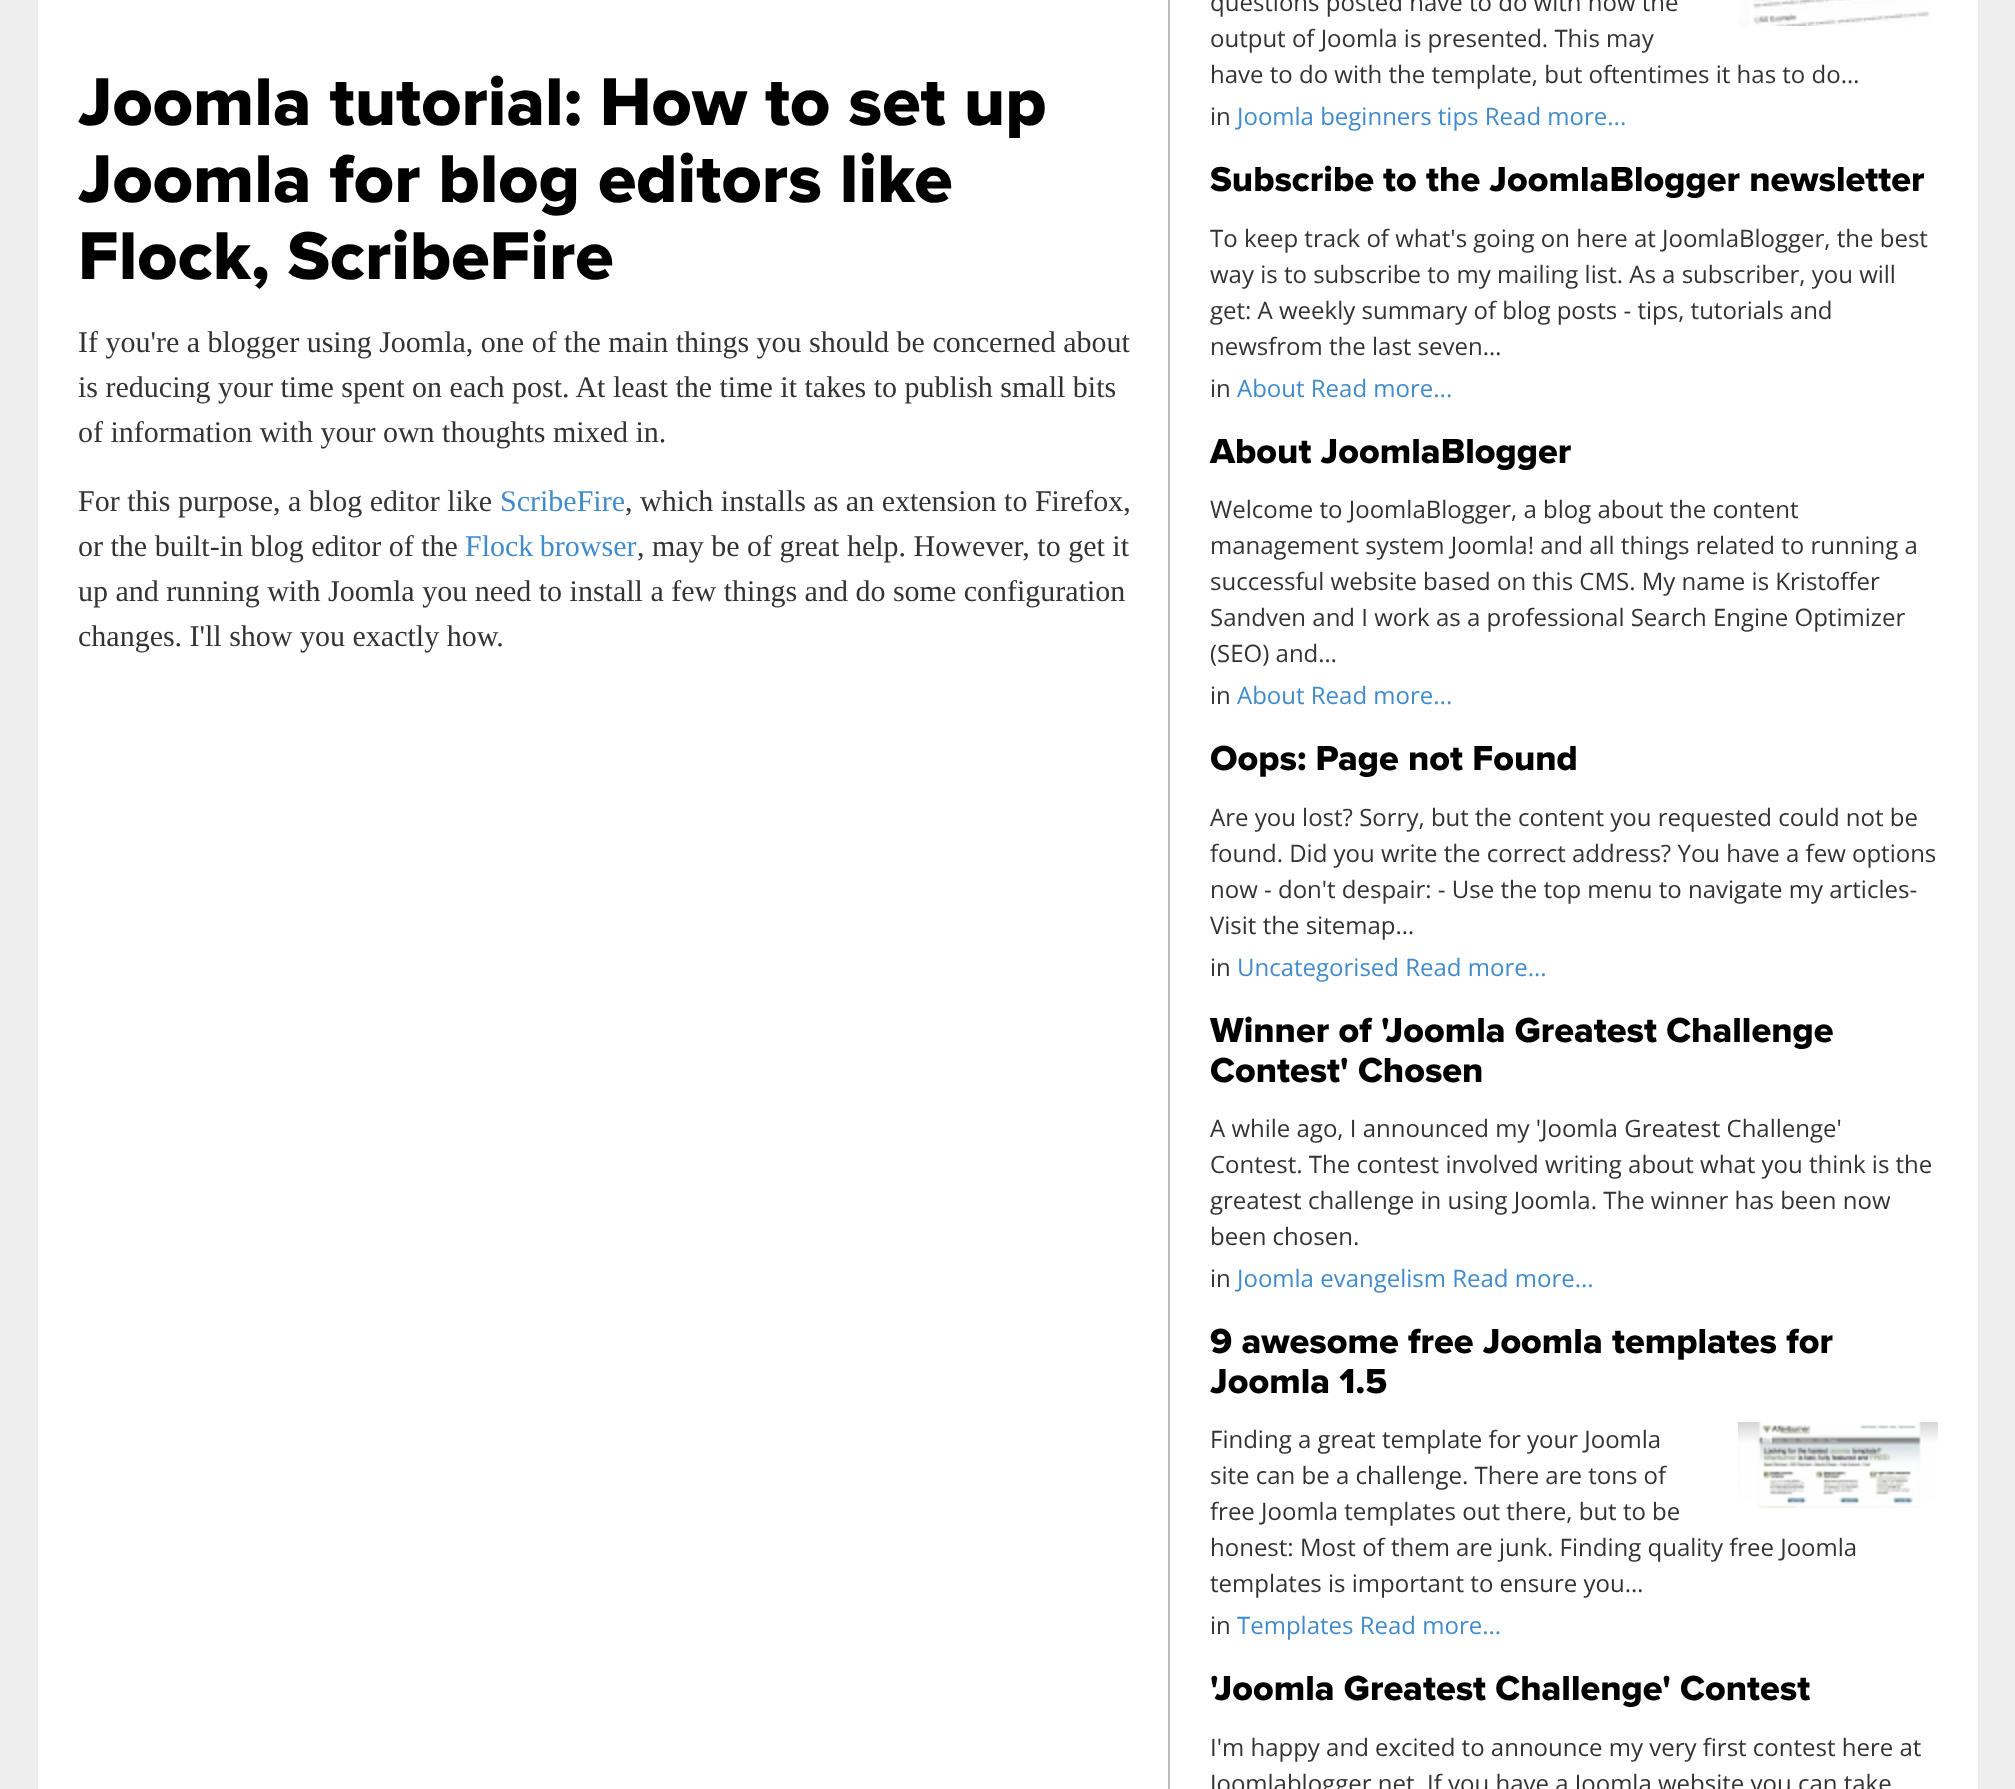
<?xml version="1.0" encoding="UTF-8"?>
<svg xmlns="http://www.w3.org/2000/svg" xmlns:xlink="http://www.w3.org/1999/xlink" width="2015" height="1789">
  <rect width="100%" height="100%" fill="#eeeeee" />
  <rect x="38" width="1940" height="1789" fill="#ffffff" />
  <rect x="1168" width="2" height="1789" fill="#bbbbbb" />
  <image x="1738" y="0" width="192" height="26" xlink:href="image1.png" />
  <image x="1738" y="1422" width="200" height="86" xlink:href="image2.png" />
  <text x="78" y="125" style="font-family: Proxima Nova; font-size: 70px; font-weight: 800; fill: #000000">Joomla tutorial: How to set up</text>
  <text x="78" y="202" style="font-family: Proxima Nova; font-size: 70px; font-weight: 800; fill: #000000">Joomla for blog editors like</text>
  <text x="78" y="279" style="font-family: Proxima Nova; font-size: 70px; font-weight: 800; fill: #000000">Flock, ScribeFire</text>
  <text x="78" y="352" style="font-family: Liberation Serif; font-size: 30px; fill: #333333">If you're a blogger using Joomla, one of the main things you should be concerned about</text>
  <text x="78" y="397" style="font-family: Liberation Serif; font-size: 30px; fill: #333333">is reducing your time spent on each post. At least the time it takes to publish small bits</text>
  <text x="78" y="442" style="font-family: Liberation Serif; font-size: 30px; fill: #333333">of information with your own thoughts mixed in.</text>
  <text x="78" y="511" style="font-family: Liberation Serif; font-size: 30px; fill: #333333">For this purpose, a blog editor like</text>
  <text x="500" y="511" style="font-family: Liberation Serif; font-size: 30px; fill: #428bca">ScribeFire</text>
  <text x="625" y="511" style="font-family: Liberation Serif; font-size: 30px; fill: #333333">, which installs as an extension to Firefox,</text>
  <text x="78" y="556" style="font-family: Liberation Serif; font-size: 30px; fill: #333333">or the built-in blog editor of the</text>
  <text x="465" y="556" word-spacing="-1" style="font-family: Liberation Serif; font-size: 30px; fill: #428bca">Flock browser</text>
  <text x="637" y="556" style="font-family: Liberation Serif; font-size: 30px; fill: #333333">, may be of great help. However, to get it</text>
  <text x="78" y="601" style="font-family: Liberation Serif; font-size: 30px; fill: #333333">up and running with Joomla you need to install a few things and do some configuration</text>
  <text x="78" y="646" style="font-family: Liberation Serif; font-size: 30px; fill: #333333">changes. I'll show you exactly how.</text>
  <text x="1210" y="11" style="font-family: Open Sans; font-size: 24px; fill: #333333">questions posted have to do with how the</text>
  <text x="1210" y="47" style="font-family: Open Sans; font-size: 24px; fill: #333333">output of Joomla is presented. This may</text>
  <text x="1210" y="83" style="font-family: Open Sans; font-size: 24px; fill: #333333">have to do with the template, but oftentimes it has to do…</text>
  <text x="1210" y="125" style="font-family: Open Sans; font-size: 24px; fill: #333333">in</text>
  <text x="1237" y="125" style="font-family: Open Sans; font-size: 24px; fill: #428bca">Joomla beginners tips Read more...</text>
  <text x="1210" y="191" style="font-family: Proxima Nova; font-size: 36px; font-weight: 800; fill: #000000">Subscribe to the JoomlaBlogger newsletter</text>
  <text x="1210" y="247" style="font-family: Open Sans; font-size: 24px; fill: #333333">To keep track of what's going on here at JoomlaBlogger, the best</text>
  <text x="1210" y="283" style="font-family: Open Sans; font-size: 24px; fill: #333333">way is to subscribe to my mailing list. As a subscriber, you will</text>
  <text x="1210" y="319" style="font-family: Open Sans; font-size: 24px; fill: #333333">get: A weekly summary of blog posts - tips, tutorials and</text>
  <text x="1210" y="355" style="font-family: Open Sans; font-size: 24px; fill: #333333">newsfrom the last seven…</text>
  <text x="1210" y="397" style="font-family: Open Sans; font-size: 24px; fill: #333333">in</text>
  <text x="1237" y="397" style="font-family: Open Sans; font-size: 24px; fill: #428bca">About Read more...</text>
  <text x="1210" y="463" style="font-family: Proxima Nova; font-size: 36px; font-weight: 800; fill: #000000">About JoomlaBlogger</text>
  <text x="1210" y="518" style="font-family: Open Sans; font-size: 24px; fill: #333333">Welcome to JoomlaBlogger, a blog about the content</text>
  <text x="1210" y="554" style="font-family: Open Sans; font-size: 24px; fill: #333333">management system Joomla! and all things related to running a</text>
  <text x="1210" y="590" style="font-family: Open Sans; font-size: 24px; fill: #333333">successful website based on this CMS. My name is Kristoffer</text>
  <text x="1210" y="626" style="font-family: Open Sans; font-size: 24px; fill: #333333">Sandven and I work as a professional Search Engine Optimizer</text>
  <text x="1210" y="662" style="font-family: Open Sans; font-size: 24px; fill: #333333">(SEO) and…</text>
  <text x="1210" y="704" style="font-family: Open Sans; font-size: 24px; fill: #333333">in</text>
  <text x="1237" y="704" style="font-family: Open Sans; font-size: 24px; fill: #428bca">About Read more...</text>
  <text x="1210" y="770" style="font-family: Proxima Nova; font-size: 36px; font-weight: 800; fill: #000000">Oops: Page not Found</text>
  <text x="1210" y="826" style="font-family: Open Sans; font-size: 24px; fill: #333333">Are you lost? Sorry, but the content you requested could not be</text>
  <text x="1210" y="862" style="font-family: Open Sans; font-size: 24px; fill: #333333">found. Did you write the correct address? You have a few options</text>
  <text x="1210" y="898" style="font-family: Open Sans; font-size: 24px; fill: #333333">now - don't despair: - Use the top menu to navigate my articles-</text>
  <text x="1210" y="934" style="font-family: Open Sans; font-size: 24px; fill: #333333">Visit the sitemap…</text>
  <text x="1210" y="976" style="font-family: Open Sans; font-size: 24px; fill: #333333">in</text>
  <text x="1237" y="976" style="font-family: Open Sans; font-size: 24px; fill: #428bca">Uncategorised Read more...</text>
  <text x="1210" y="1042" style="font-family: Proxima Nova; font-size: 36px; font-weight: 800; fill: #000000">Winner of 'Joomla Greatest Challenge</text>
  <text x="1210" y="1082" style="font-family: Proxima Nova; font-size: 36px; font-weight: 800; fill: #000000">Contest' Chosen</text>
  <text x="1210" y="1137" style="font-family: Open Sans; font-size: 24px; fill: #333333">A while ago, I announced my 'Joomla Greatest Challenge'</text>
  <text x="1210" y="1173" style="font-family: Open Sans; font-size: 24px; fill: #333333">Contest. The contest involved writing about what you think is the</text>
  <text x="1210" y="1209" style="font-family: Open Sans; font-size: 24px; fill: #333333">greatest challenge in using Joomla. The winner has been now</text>
  <text x="1210" y="1245" style="font-family: Open Sans; font-size: 24px; fill: #333333">been chosen.</text>
  <text x="1210" y="1287" style="font-family: Open Sans; font-size: 24px; fill: #333333">in</text>
  <text x="1237" y="1287" style="font-family: Open Sans; font-size: 24px; fill: #428bca">Joomla evangelism Read more...</text>
  <text x="1210" y="1353" style="font-family: Proxima Nova; font-size: 36px; font-weight: 800; fill: #000000">9 awesome free Joomla templates for</text>
  <text x="1210" y="1393" style="font-family: Proxima Nova; font-size: 36px; font-weight: 800; fill: #000000">Joomla 1.5</text>
  <text x="1210" y="1448" style="font-family: Open Sans; font-size: 24px; fill: #333333">Finding a great template for your Joomla</text>
  <text x="1210" y="1484" style="font-family: Open Sans; font-size: 24px; fill: #333333">site can be a challenge. There are tons of</text>
  <text x="1210" y="1520" style="font-family: Open Sans; font-size: 24px; fill: #333333">free Joomla templates out there, but to be</text>
  <text x="1210" y="1556" style="font-family: Open Sans; font-size: 24px; fill: #333333">honest: Most of them are junk. Finding quality free Joomla</text>
  <text x="1210" y="1592" style="font-family: Open Sans; font-size: 24px; fill: #333333">templates is important to ensure you…</text>
  <text x="1210" y="1634" style="font-family: Open Sans; font-size: 24px; fill: #333333">in</text>
  <text x="1237" y="1634" style="font-family: Open Sans; font-size: 24px; fill: #428bca">Templates Read more...</text>
  <text x="1210" y="1700" style="font-family: Proxima Nova; font-size: 36px; font-weight: 800; fill: #000000">'Joomla Greatest Challenge' Contest</text>
  <text x="1210" y="1756" style="font-family: Open Sans; font-size: 24px; fill: #333333">I'm happy and excited to announce my very first contest here at</text>
  <text x="1210" y="1792" style="font-family: Open Sans; font-size: 24px; fill: #333333">Joomlablogger.net. If you have a Joomla website you can take</text>
</svg>
